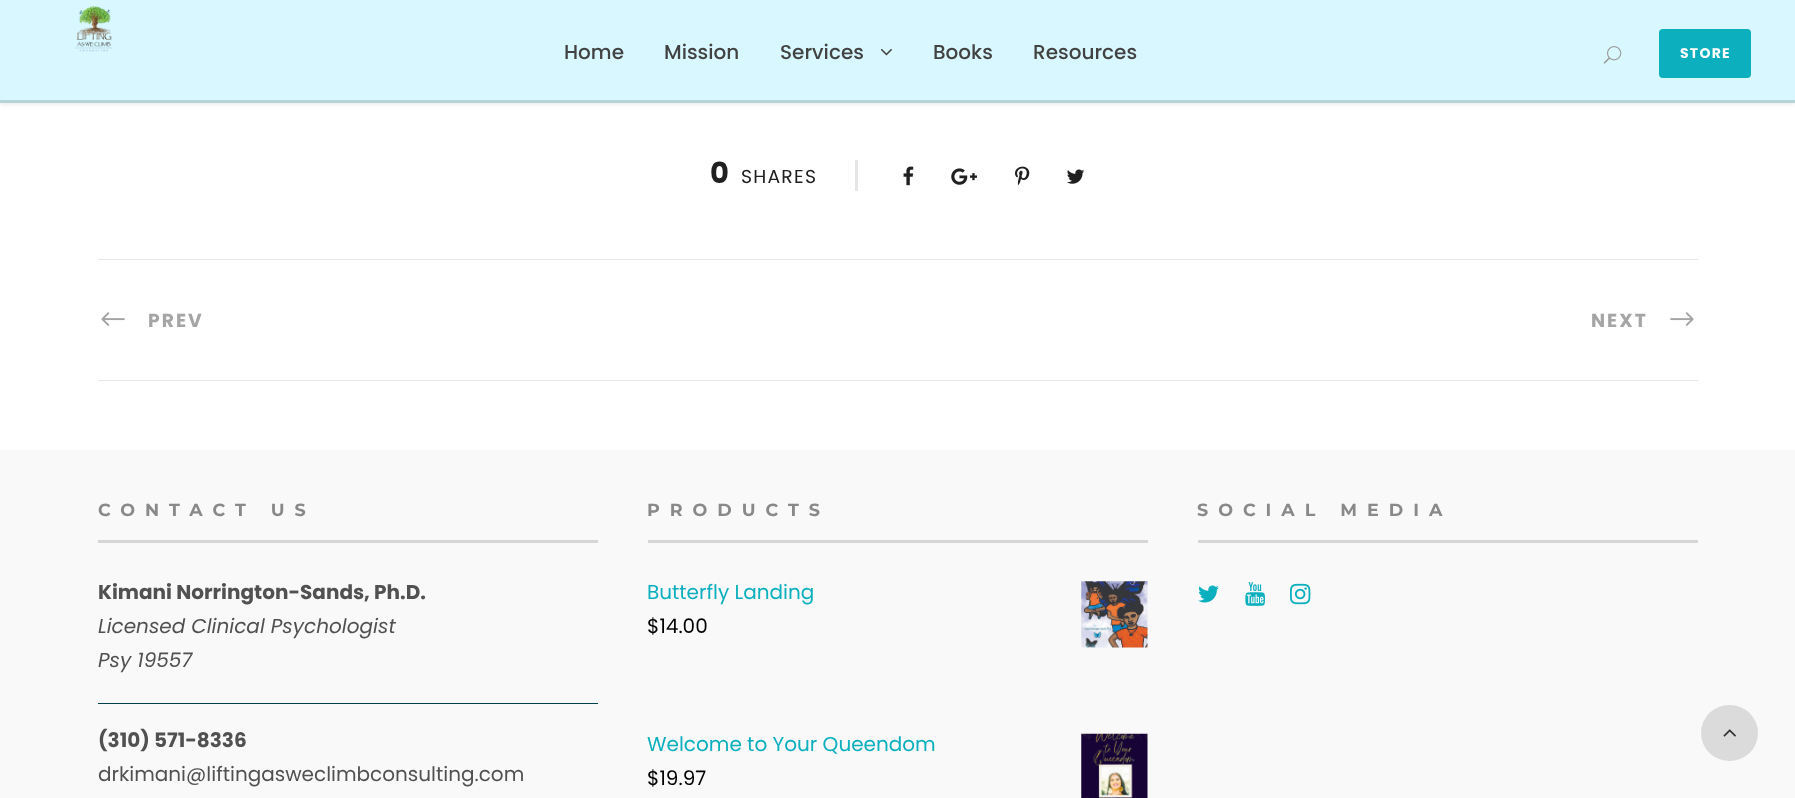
<?xml version="1.0" encoding="UTF-8"?>
<svg xmlns="http://www.w3.org/2000/svg" xmlns:xlink="http://www.w3.org/1999/xlink" width="1795" height="798">
  <rect width="100%" height="100%" fill="#ffffff" />
  <rect y="1" width="1795" height="103" fill="#000000" fill-opacity="0.1" filter="blur(2.5px)" />
  <rect y="100" width="1795" height="3" fill="#b5d4d5" />
  <rect width="1795" height="100" fill="#d8f7ff" />
  <image x="75" y="6" width="38" height="46" xlink:href="image1.png" />
  <image x="880" y="48" width="12" height="8" xlink:href="image2.png" />
  <image x="1603" y="46" width="19" height="18" xlink:href="image3.png" />
  <rect x="1660.5" y="30.5" width="89" height="46" rx="2.5" fill="#0bafbe" stroke="#0bafbe" stroke-width="3" />
  <rect x="855" y="160" width="3" height="31" fill="#e5e5e5" />
  <image x="903" y="166" width="11" height="20" xlink:href="image4.png" />
  <image x="951" y="168" width="26" height="17" xlink:href="image5.png" />
  <image x="1015" y="166" width="15" height="20" xlink:href="image6.png" />
  <image x="1067" y="169" width="18" height="15" xlink:href="image7.png" />
  <rect x="98" y="259" width="1600" height="1" fill="#e6e6e6" />
  <rect x="98" y="380" width="1600" height="1" fill="#e6e6e6" />
  <image x="101" y="312" width="24" height="14" xlink:href="image8.png" />
  <image x="1670" y="312" width="24" height="14" xlink:href="image9.png" />
  <rect y="450" width="1795" height="348" fill="#f9f9f9" />
  <rect x="98" y="540" width="500" height="3" fill="#d6d6d6" />
  <rect x="98" y="703" width="500" height="1" fill="#004249" />
  <rect x="648" y="540" width="500" height="3" fill="#d6d6d6" />
  <image x="1081" y="581" width="67" height="67" xlink:href="image10.png" />
  <image x="1081" y="733" width="67" height="65" xlink:href="image11.png" />
  <rect x="1198" y="540" width="500" height="3" fill="#d6d6d6" />
  <image x="1198" y="585" width="21" height="18" xlink:href="image12.png" />
  <image x="1245" y="582" width="20" height="24" xlink:href="image13.png" />
  <image x="1290" y="583" width="21" height="22" xlink:href="image14.png" />
  <rect x="1701" y="705" width="57" height="56" rx="28" fill="#dbdbdb" />
  <image x="1723" y="729" width="13" height="8" xlink:href="image15.png" />
  <text x="564" y="59" style="font-family: Poppins; font-size: 20px; font-weight: 500; fill: #424242">Home</text>
  <text x="664" y="59" style="font-family: Poppins; font-size: 20px; font-weight: 500; fill: #424242">Mission</text>
  <text x="780" y="59" style="font-family: Poppins; font-size: 20px; font-weight: 500; fill: #424242">Services</text>
  <text x="933" y="59" style="font-family: Poppins; font-size: 20px; font-weight: 500; fill: #424242">Books</text>
  <text x="1033" y="59" style="font-family: Poppins; font-size: 20px; font-weight: 500; fill: #424242">Resources</text>
  <text x="1680" y="58" style="font-family: Poppins; font-size: 14px; font-weight: bold; letter-spacing: 1.25px; fill: #ffffff">STORE</text>
  <text x="710" y="183" style="font-family: Poppins; font-size: 29px; font-weight: bold; fill: #202020">0</text>
  <text x="741" y="183" style="font-family: Poppins; font-size: 18.75px; letter-spacing: 1.25px; fill: #202020">SHARES</text>
  <text x="148" y="327" style="font-family: Poppins; font-size: 18.75px; font-weight: bold; letter-spacing: 2px; fill: #a5a5a5">PREV</text>
  <text x="1591" y="327" style="font-family: Poppins; font-size: 18.75px; font-weight: bold; letter-spacing: 2px; fill: #a5a5a5">NEXT</text>
  <text x="98" y="516" style="font-family: Montserrat; font-size: 17.5px; font-weight: bold; letter-spacing: 10px; fill: #898989">CONTACT US</text>
  <text x="98" y="599" style="font-family: Poppins; font-size: 20px; font-weight: bold; fill: #515151">Kimani Norrington-Sands, Ph.D.</text>
  <text x="98" y="633" style="font-family: Poppins; font-size: 20px; font-style: italic; fill: #515151">Licensed Clinical Psychologist</text>
  <text x="98" y="667" style="font-family: Poppins; font-size: 20px; font-style: italic; fill: #515151">Psy 19557</text>
  <text x="98" y="747" style="font-family: Poppins; font-size: 20px; font-weight: bold; fill: #515151">(310) 571-8336</text>
  <text x="98" y="781" style="font-family: Poppins; font-size: 20px; fill: #515151">drkimani@liftingasweclimbconsulting.com</text>
  <text x="647" y="516" style="font-family: Montserrat; font-size: 17.5px; font-weight: bold; letter-spacing: 10px; fill: #898989">PRODUCTS</text>
  <text x="647" y="599" style="font-family: Poppins; font-size: 20px; fill: #0bafbe">Butterfly Landing</text>
  <text x="647" y="633" style="font-family: Poppins; font-size: 20px; fill: #000000">$14.00</text>
  <text x="647" y="751" style="font-family: Poppins; font-size: 20px; fill: #0bafbe">Welcome to Your Queendom</text>
  <text x="647" y="785" style="font-family: Poppins; font-size: 20px; fill: #000000">$19.97</text>
  <text x="1197" y="516" style="font-family: Montserrat; font-size: 17.5px; font-weight: bold; letter-spacing: 10px; fill: #898989">SOCIAL MEDIA</text>
</svg>
